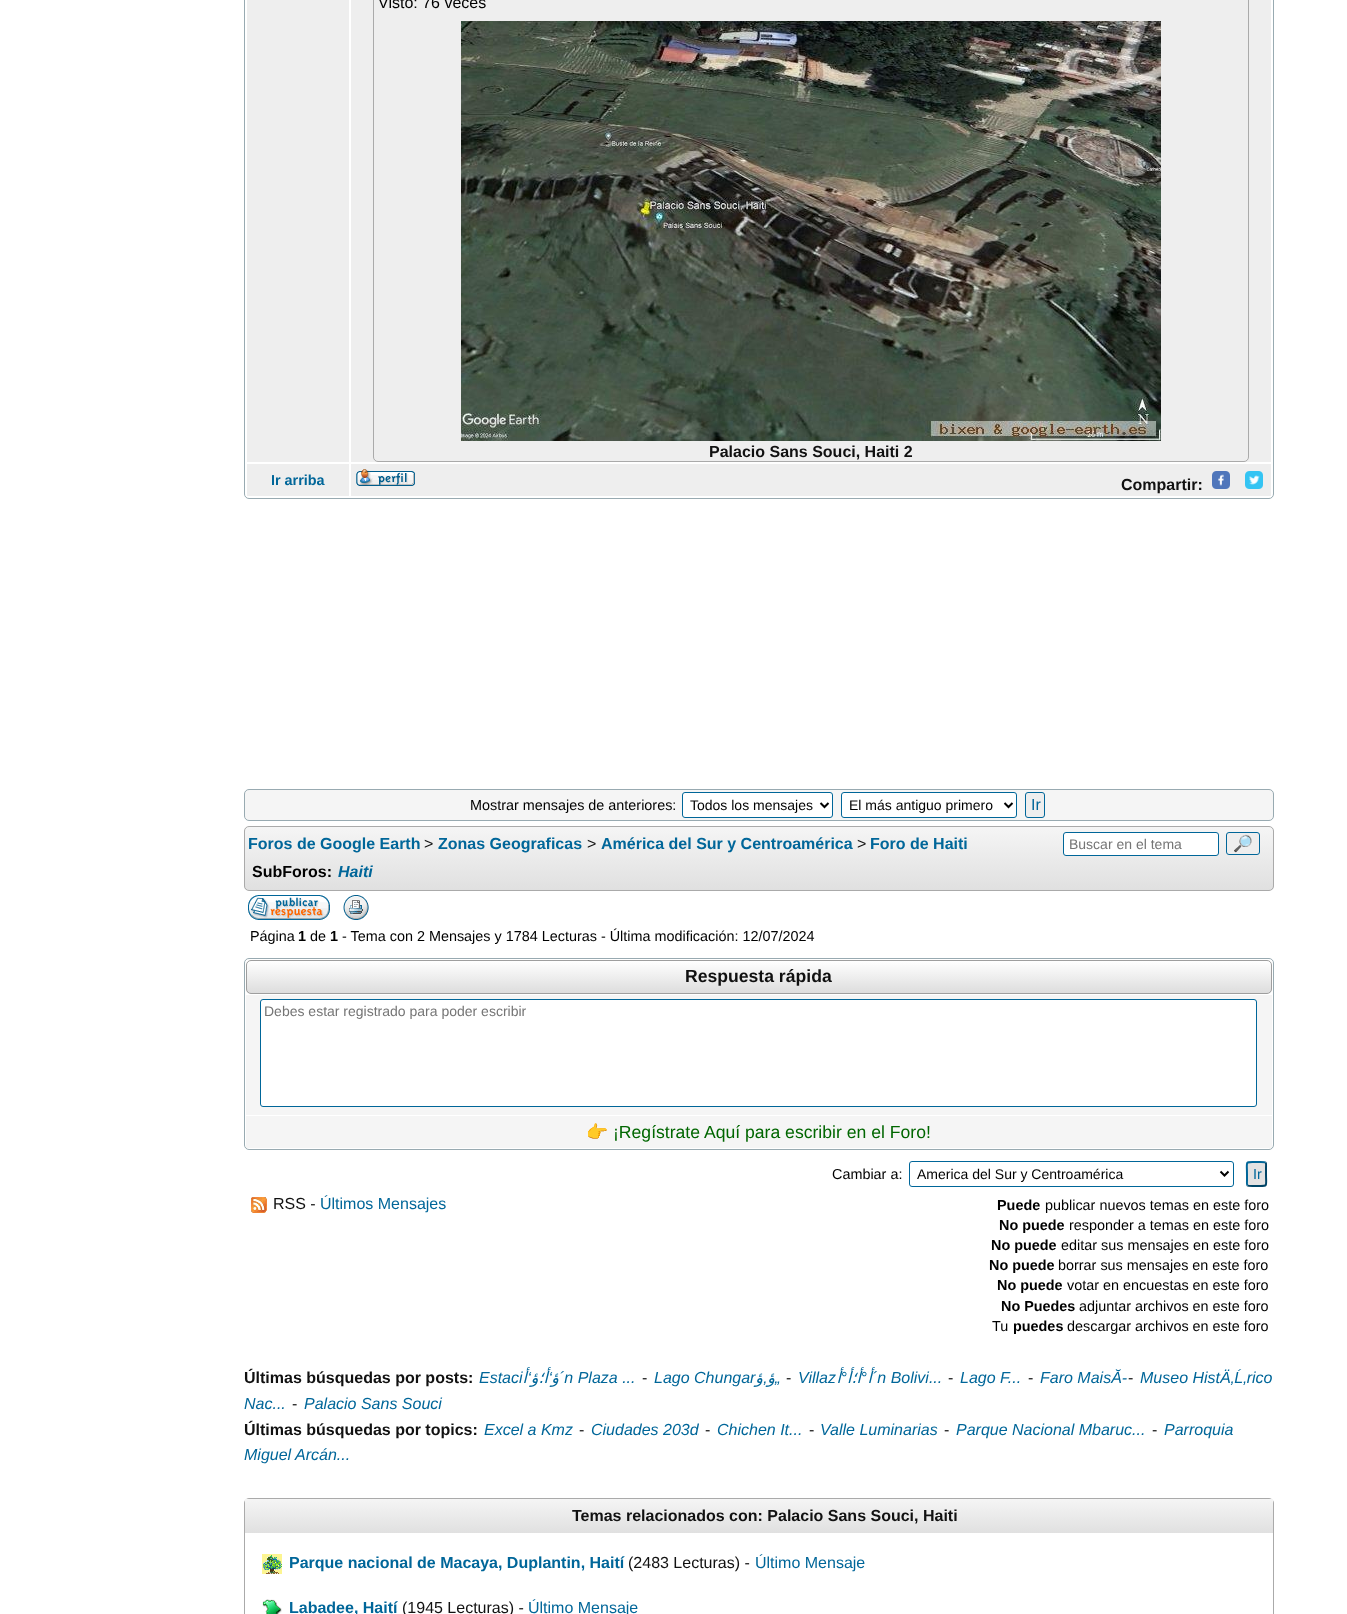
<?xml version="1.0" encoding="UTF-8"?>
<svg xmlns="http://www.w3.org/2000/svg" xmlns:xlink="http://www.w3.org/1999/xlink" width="1347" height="1614">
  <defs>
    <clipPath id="clip1"><rect x="244" y="826" width="1030" height="65" rx="5" /></clipPath>
    <linearGradient id="g1" gradientUnits="userSpaceOnUse" x1="759" y1="827" x2="759" y2="890"><stop offset="0" stop-color="#f5f5f5" /><stop offset="1" stop-color="#e0e0e0" /></linearGradient>
    <clipPath id="clip2"><rect x="246" y="960" width="1026" height="34" rx="5" /></clipPath>
    <linearGradient id="g2" gradientUnits="userSpaceOnUse" x1="759" y1="961" x2="759" y2="993"><stop offset="0" stop-color="#ffffff" /><stop offset="1" stop-color="#dddddd" /></linearGradient>
    <linearGradient id="g3" gradientUnits="userSpaceOnUse" x1="759" y1="1499" x2="759" y2="1533"><stop offset="0" stop-color="#f5f5f5" /><stop offset="1" stop-color="#e0e0e0" /></linearGradient>
  </defs>
  <rect width="100%" height="100%" fill="#ffffff" />
  <rect x="244.5" y="-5.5" width="1029" height="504" rx="4.5" fill="none" stroke="#98aab1" />
  <rect x="247" width="102" height="462" fill="#eeeeee" />
  <rect x="351" width="920" height="462" fill="#eeeeee" />
  <rect x="373.5" y="-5.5" width="875" height="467" rx="4.5" fill="none" stroke="#aaaaaa" />
  <image x="461" y="21" width="700" height="420" xlink:href="image1.png" />
  <rect x="247" y="464" width="102" height="32" fill="#eeeeee" />
  <rect x="351" y="464" width="920" height="32" fill="#eeeeee" />
  <image x="356" y="469" width="59" height="17" xlink:href="image2.png" />
  <image x="1212" y="471" width="18" height="18" xlink:href="image3.png" />
  <image x="1245" y="471" width="18" height="18" xlink:href="image4.png" />
  <rect x="244.5" y="789.5" width="1029" height="31" rx="4.5" fill="#f5f5f5" stroke="#98aab1" />
  <rect x="682.5" y="792.5" width="150" height="25" rx="2.5" fill="#ffffff" stroke="#006699" />
  <path d="M 820.5 803 l 4 4 l 4 -4" fill="none" stroke="#000000" stroke-width="2" />
  <rect x="841.5" y="792.5" width="175" height="25" rx="2.5" fill="#ffffff" stroke="#006699" />
  <path d="M 1004.5 803 l 4 4 l 4 -4" fill="none" stroke="#000000" stroke-width="2" />
  <rect x="1025.5" y="792.5" width="19" height="25" rx="2.5" fill="#eeeeee" stroke="#006699" />
  <g clip-path="url(#clip1)">
    <rect x="244" y="827" width="1030" height="63" fill="url(#g1)" />
  </g>
  <rect x="244.5" y="826.5" width="1029" height="64" rx="4.5" fill="none" stroke="#aaaaaa" />
  <rect x="1063.5" y="832.5" width="155" height="23" rx="2.5" fill="#ffffff" stroke="#006699" />
  <rect x="1226.5" y="832.5" width="33" height="22" rx="2.5" fill="#eeeeee" stroke="#006699" />
  <image x="248" y="895" width="82" height="25" xlink:href="image5.png" />
  <image x="343" y="895" width="26" height="25" xlink:href="image6.png" />
  <rect x="244.5" y="958.5" width="1029" height="191" rx="4.5" fill="none" stroke="#98aab1" />
  <g clip-path="url(#clip2)">
    <rect x="246" y="961" width="1026" height="32" fill="url(#g2)" />
  </g>
  <rect x="246.5" y="960.5" width="1025" height="33" rx="4.5" fill="none" stroke="#9e9e9e" />
  <rect x="246" y="995" width="1026" height="120" fill="#f5f5f5" />
  <rect x="260.5" y="999.5" width="996" height="107" rx="2.5" fill="#ffffff" stroke="#006699" />
  <rect x="246" y="1116" width="1026" height="32" fill="#f5f5f5" />
  <image x="251" y="1197" width="16" height="16" xlink:href="image7.png" />
  <rect x="909.5" y="1161.5" width="324" height="25" rx="2.5" fill="none" stroke="#006699" />
  <path d="M 1220.5 1171.5 l 4 4 l 4 -4" fill="none" stroke="#000000" stroke-width="2" />
  <rect x="1246" y="1161" width="21" height="26" rx="3" fill="#e3e2e2" />
  <path d="M 1265.5 1162.5 c 1 1 0.5 4 0.5 5 v 6.5 c 0 13.5 2.5 12 -9.5 12 c -1.5 0 -7.5 0.5 -9 -0.5" fill="none" stroke="#004466" stroke-width="2" />
  <path d="M 1247.5 1185.5 c -1 -1 -0.5 -4 -0.5 -5 v -6.5 c 0 -13.5 -2.5 -12 9.5 -12 c 1.5 0 7.5 -0.5 9 0.5" fill="none" stroke="#006699" stroke-width="2" />
  <rect x="244.5" y="1498.5" width="1029" height="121" rx="4.5" fill="none" stroke="#aaaaaa" />
  <rect x="245" y="1499" width="1028" height="34" fill="url(#g3)" />
  <image x="262" y="1554" width="20" height="20" xlink:href="image8.png" />
  <image x="262" y="1599" width="20" height="15" xlink:href="image9.png" />
  <text x="378" y="8" style="font-family: Liberation Sans; font-size: 16px; fill: #000000">Visto: 76 veces</text>
  <text x="709" y="457" style="font-family: Liberation Sans; font-size: 16px; font-weight: bold; fill: #111111">Palacio Sans Souci, Haiti 2</text>
  <text x="271" y="485" style="font-family: Liberation Sans; font-size: 14.4px; font-weight: bold; fill: #006699">Ir arriba</text>
  <text x="1121" y="490" style="font-family: Liberation Sans; font-size: 16px; font-weight: bold; fill: #111111">Compartir:</text>
  <text x="470" y="810" style="font-family: Liberation Sans; font-size: 14.4px; fill: #000000">Mostrar mensajes de anteriores:</text>
  <text x="690" y="810" style="font-family: Liberation Sans; font-size: 14px; fill: #000000">Todos los mensajes</text>
  <text x="849" y="810" style="font-family: Liberation Sans; font-size: 14px; fill: #000000">El más antiguo primero</text>
  <text x="1031" y="810" style="font-family: Liberation Sans; font-size: 16px; fill: #006699">Ir</text>
  <text x="248" y="849" style="font-family: Liberation Sans; font-size: 16px; font-weight: bold; fill: #006699">Foros de Google Earth</text>
  <text x="424" y="849" style="font-family: Liberation Sans; font-size: 16px; fill: #111111">&gt;</text>
  <text x="438" y="849" style="font-family: Liberation Sans; font-size: 16px; font-weight: bold; fill: #006699">Zonas Geograficas</text>
  <text x="587" y="849" style="font-family: Liberation Sans; font-size: 16px; fill: #111111">&gt;</text>
  <text x="601" y="849" style="font-family: Liberation Sans; font-size: 16px; font-weight: bold; fill: #006699">América del Sur y Centroamérica</text>
  <text x="857" y="849" style="font-family: Liberation Sans; font-size: 16px; fill: #111111">&gt;</text>
  <text x="870" y="849" style="font-family: Liberation Sans; font-size: 16px; font-weight: bold; fill: #006699">Foro de Haiti</text>
  <text x="1069" y="849" style="font-family: Liberation Sans; font-size: 14px; fill: #757575">Buscar en el tema</text>
  <text x="1233" y="849" style="font-family: Noto Color Emoji; font-size: 16px; fill: #006699">🔎</text>
  <text x="252" y="877" style="font-family: Liberation Sans; font-size: 16px; font-weight: bold; fill: #000000">SubForos:</text>
  <text x="338" y="877" style="font-family: Liberation Sans; font-size: 16px; font-weight: bold; font-style: italic; fill: #006699">Haiti</text>
  <text x="250" y="941" style="font-family: Liberation Sans; font-size: 14.4px; fill: #000000">Página</text>
  <text x="298" y="941" style="font-family: Liberation Sans; font-size: 14.4px; font-weight: bold; fill: #000000">1</text>
  <text x="310" y="941" style="font-family: Liberation Sans; font-size: 14.4px; fill: #000000">de</text>
  <text x="330" y="941" style="font-family: Liberation Sans; font-size: 14.4px; font-weight: bold; fill: #000000">1</text>
  <text x="342" y="941" style="font-family: Liberation Sans; font-size: 14.4px; fill: #000000">- Tema con 2 Mensajes y 1784 Lecturas - Última modificación: 12/07/2024</text>
  <text x="685" y="982" style="font-family: Liberation Sans; font-size: 17.6px; font-weight: bold; fill: #111111">Respuesta rápida</text>
  <text x="264" y="1016" style="font-family: Liberation Sans; font-size: 14px; fill: #757575">Debes estar registrado para poder escribir</text>
  <text x="586" y="1138" style="font-family: Noto Color Emoji; font-size: 17.6px; fill: #006600">👉</text>
  <text x="613" y="1138" style="font-family: Liberation Sans; font-size: 17.6px; fill: #006600">¡Regístrate Aquí para escribir en el Foro!</text>
  <text x="273" y="1209" style="font-family: Liberation Sans; font-size: 16px; fill: #111111">RSS -</text>
  <text x="320" y="1209" style="font-family: Liberation Sans; font-size: 16px; fill: #006699">Últimos Mensajes</text>
  <text x="832" y="1179" style="font-family: Liberation Sans; font-size: 14.4px; fill: #000000">Cambiar a:</text>
  <text x="917" y="1179" style="font-family: Liberation Sans; font-size: 14px; fill: #000000">America del Sur y Centroamérica</text>
  <text x="1253" y="1179" style="font-family: Liberation Sans; font-size: 14.4px; fill: #006699">Ir</text>
  <text x="997" y="1210" style="font-family: Liberation Sans; font-size: 14.4px; font-weight: bold; fill: #000000">Puede</text>
  <text x="1045" y="1210" style="font-family: Liberation Sans; font-size: 14.4px; fill: #000000">publicar nuevos temas en este foro</text>
  <text x="999" y="1230" style="font-family: Liberation Sans; font-size: 14.4px; font-weight: bold; fill: #000000">No puede</text>
  <text x="1069" y="1230" style="font-family: Liberation Sans; font-size: 14.4px; fill: #000000">responder a temas en este foro</text>
  <text x="991" y="1250" style="font-family: Liberation Sans; font-size: 14.4px; font-weight: bold; fill: #000000">No puede</text>
  <text x="1061" y="1250" style="font-family: Liberation Sans; font-size: 14.4px; fill: #000000">editar sus mensajes en este foro</text>
  <text x="989" y="1270" style="font-family: Liberation Sans; font-size: 14.4px; font-weight: bold; fill: #000000">No puede</text>
  <text x="1058" y="1270" style="font-family: Liberation Sans; font-size: 14.4px; fill: #000000">borrar sus mensajes en este foro</text>
  <text x="997" y="1290" style="font-family: Liberation Sans; font-size: 14.4px; font-weight: bold; fill: #000000">No puede</text>
  <text x="1067" y="1290" style="font-family: Liberation Sans; font-size: 14.4px; fill: #000000">votar en encuestas en este foro</text>
  <text x="1001" y="1311" style="font-family: Liberation Sans; font-size: 14.4px; font-weight: bold; fill: #000000">No Puedes</text>
  <text x="1079" y="1311" style="font-family: Liberation Sans; font-size: 14.4px; fill: #000000">adjuntar archivos en este foro</text>
  <text x="992" y="1331" style="font-family: Liberation Sans; font-size: 14.4px; fill: #000000">Tu</text>
  <text x="1013" y="1331" style="font-family: Liberation Sans; font-size: 14.4px; font-weight: bold; fill: #000000">puedes</text>
  <text x="1067" y="1331" style="font-family: Liberation Sans; font-size: 14.4px; fill: #000000">descargar archivos en este foro</text>
  <text x="244" y="1383" style="font-family: Liberation Sans; font-size: 16px; font-weight: bold; fill: #111111">Últimas búsquedas por posts:</text>
  <text x="479" y="1383" style="font-family: Liberation Sans; font-size: 16px; font-style: italic; fill: #006699">Estaci</text>
  <text x="527" y="1383" style="font-family: DejaVu Sans; font-size: 16px; font-style: italic; direction: rtl; fill: #006699">أ</text>
  <text x="559" y="1383" style="font-family: Liberation Sans; font-size: 16px; font-style: italic; fill: #006699">´n Plaza ...</text>
  <text x="654" y="1383" style="font-family: Liberation Sans; font-size: 16px; font-style: italic; fill: #006699">Lago Chungar</text>
  <text x="798" y="1383" style="font-family: Liberation Sans; font-size: 16px; font-style: italic; fill: #006699">Villaz</text>
  <text x="841" y="1383" style="font-family: DejaVu Sans; font-size: 16px; font-style: italic; direction: rtl; fill: #006699">أ</text>
  <text x="847" y="1383" style="font-family: Liberation Sans; font-size: 16px; font-style: italic; direction: rtl; fill: #006699">°</text>
  <text x="861" y="1383" style="font-family: DejaVu Sans; font-size: 16px; font-style: italic; direction: rtl; fill: #006699">أ؛أ</text>
  <text x="867" y="1383" style="font-family: Liberation Sans; font-size: 16px; font-style: italic; direction: rtl; fill: #006699">°</text>
  <text x="872" y="1383" style="font-family: DejaVu Sans; font-size: 16px; font-style: italic; direction: rtl; fill: #006699">أ</text>
  <text x="872" y="1383" style="font-family: Liberation Sans; font-size: 16px; font-style: italic; fill: #006699">´n Bolivi...</text>
  <text x="1040" y="1383" style="font-family: Liberation Sans; font-size: 16px; font-style: italic; fill: #006699">Faro MaisĂ-</text>
  <text x="1140" y="1383" style="font-family: Liberation Sans; font-size: 16px; font-style: italic; fill: #006699">Museo HistÄ‚Ĺ‚rico</text>
  <text x="531" y="1383" style="font-family: Liberation Sans; font-size: 16px; font-style: italic; direction: rtl; fill: #006699">‘</text>
  <text x="548" y="1383" style="font-family: DejaVu Sans; font-size: 16px; font-style: italic; direction: rtl; fill: #006699">أ؛ؤ</text>
  <text x="552" y="1383" style="font-family: Liberation Sans; font-size: 16px; font-style: italic; direction: rtl; fill: #006699">‘</text>
  <text x="960" y="1383" style="font-family: Liberation Sans; font-size: 16px; font-style: italic; fill: #006699">Lago F...</text>
  <text x="559" y="1383" style="font-family: DejaVu Sans; font-size: 16px; font-style: italic; direction: rtl; fill: #006699">ؤ</text>
  <text x="642" y="1383" style="font-family: Liberation Sans; font-size: 16px; fill: #111111">-</text>
  <text x="763" y="1383" style="font-family: DejaVu Sans; font-size: 16px; font-style: italic; direction: rtl; fill: #006699">ؤ</text>
  <text x="786" y="1383" style="font-family: Liberation Sans; font-size: 16px; fill: #111111">-</text>
  <text x="948" y="1383" style="font-family: Liberation Sans; font-size: 16px; fill: #111111">-</text>
  <text x="1028" y="1383" style="font-family: Liberation Sans; font-size: 16px; fill: #111111">-</text>
  <text x="1128" y="1383" style="font-family: Liberation Sans; font-size: 16px; fill: #111111">-</text>
  <text x="767" y="1383" style="font-family: Liberation Sans; font-size: 16px; font-style: italic; direction: rtl; fill: #006699">‚</text>
  <text x="775" y="1383" style="font-family: DejaVu Sans; font-size: 16px; font-style: italic; direction: rtl; fill: #006699">ؤ</text>
  <text x="775" y="1383" style="font-family: Liberation Sans; font-size: 16px; font-style: italic; fill: #006699">„</text>
  <text x="244" y="1409" style="font-family: Liberation Sans; font-size: 16px; font-style: italic; fill: #006699">Nac...</text>
  <text x="292" y="1409" style="font-family: Liberation Sans; font-size: 16px; fill: #111111">-</text>
  <text x="304" y="1409" style="font-family: Liberation Sans; font-size: 16px; font-style: italic; fill: #006699">Palacio Sans Souci</text>
  <text x="244" y="1435" style="font-family: Liberation Sans; font-size: 16px; font-weight: bold; fill: #111111">Últimas búsquedas por topics:</text>
  <text x="484" y="1435" style="font-family: Liberation Sans; font-size: 16px; font-style: italic; fill: #006699">Excel a Kmz</text>
  <text x="579" y="1435" style="font-family: Liberation Sans; font-size: 16px; fill: #111111">-</text>
  <text x="591" y="1435" style="font-family: Liberation Sans; font-size: 16px; font-style: italic; fill: #006699">Ciudades 203d</text>
  <text x="705" y="1435" style="font-family: Liberation Sans; font-size: 16px; fill: #111111">-</text>
  <text x="717" y="1435" style="font-family: Liberation Sans; font-size: 16px; font-style: italic; fill: #006699">Chichen It...</text>
  <text x="809" y="1435" style="font-family: Liberation Sans; font-size: 16px; fill: #111111">-</text>
  <text x="820" y="1435" style="font-family: Liberation Sans; font-size: 16px; font-style: italic; fill: #006699">Valle Luminarias</text>
  <text x="944" y="1435" style="font-family: Liberation Sans; font-size: 16px; fill: #111111">-</text>
  <text x="956" y="1435" style="font-family: Liberation Sans; font-size: 16px; font-style: italic; fill: #006699">Parque Nacional Mbaruc...</text>
  <text x="1152" y="1435" style="font-family: Liberation Sans; font-size: 16px; fill: #111111">-</text>
  <text x="1164" y="1435" style="font-family: Liberation Sans; font-size: 16px; font-style: italic; fill: #006699">Parroquia</text>
  <text x="244" y="1460" style="font-family: Liberation Sans; font-size: 16px; font-style: italic; fill: #006699">Miguel Arcán...</text>
  <text x="572" y="1521" style="font-family: Liberation Sans; font-size: 16px; font-weight: bold; fill: #111111">Temas relacionados con: Palacio Sans Souci, Haiti</text>
  <text x="289" y="1568" style="font-family: Liberation Sans; font-size: 16px; font-weight: bold; fill: #006699">Parque nacional de Macaya, Duplantin, Haití</text>
  <text x="628" y="1568" style="font-family: Liberation Sans; font-size: 16px; fill: #111111">(2483 Lecturas) -</text>
  <text x="755" y="1568" style="font-family: Liberation Sans; font-size: 16px; fill: #006699">Último Mensaje</text>
  <text x="289" y="1613" style="font-family: Liberation Sans; font-size: 16px; font-weight: bold; fill: #006699">Labadee, Haití</text>
  <text x="402" y="1613" style="font-family: Liberation Sans; font-size: 16px; fill: #111111">(1945 Lecturas) -</text>
  <text x="528" y="1613" style="font-family: Liberation Sans; font-size: 16px; fill: #006699">Último Mensaje</text>
</svg>
